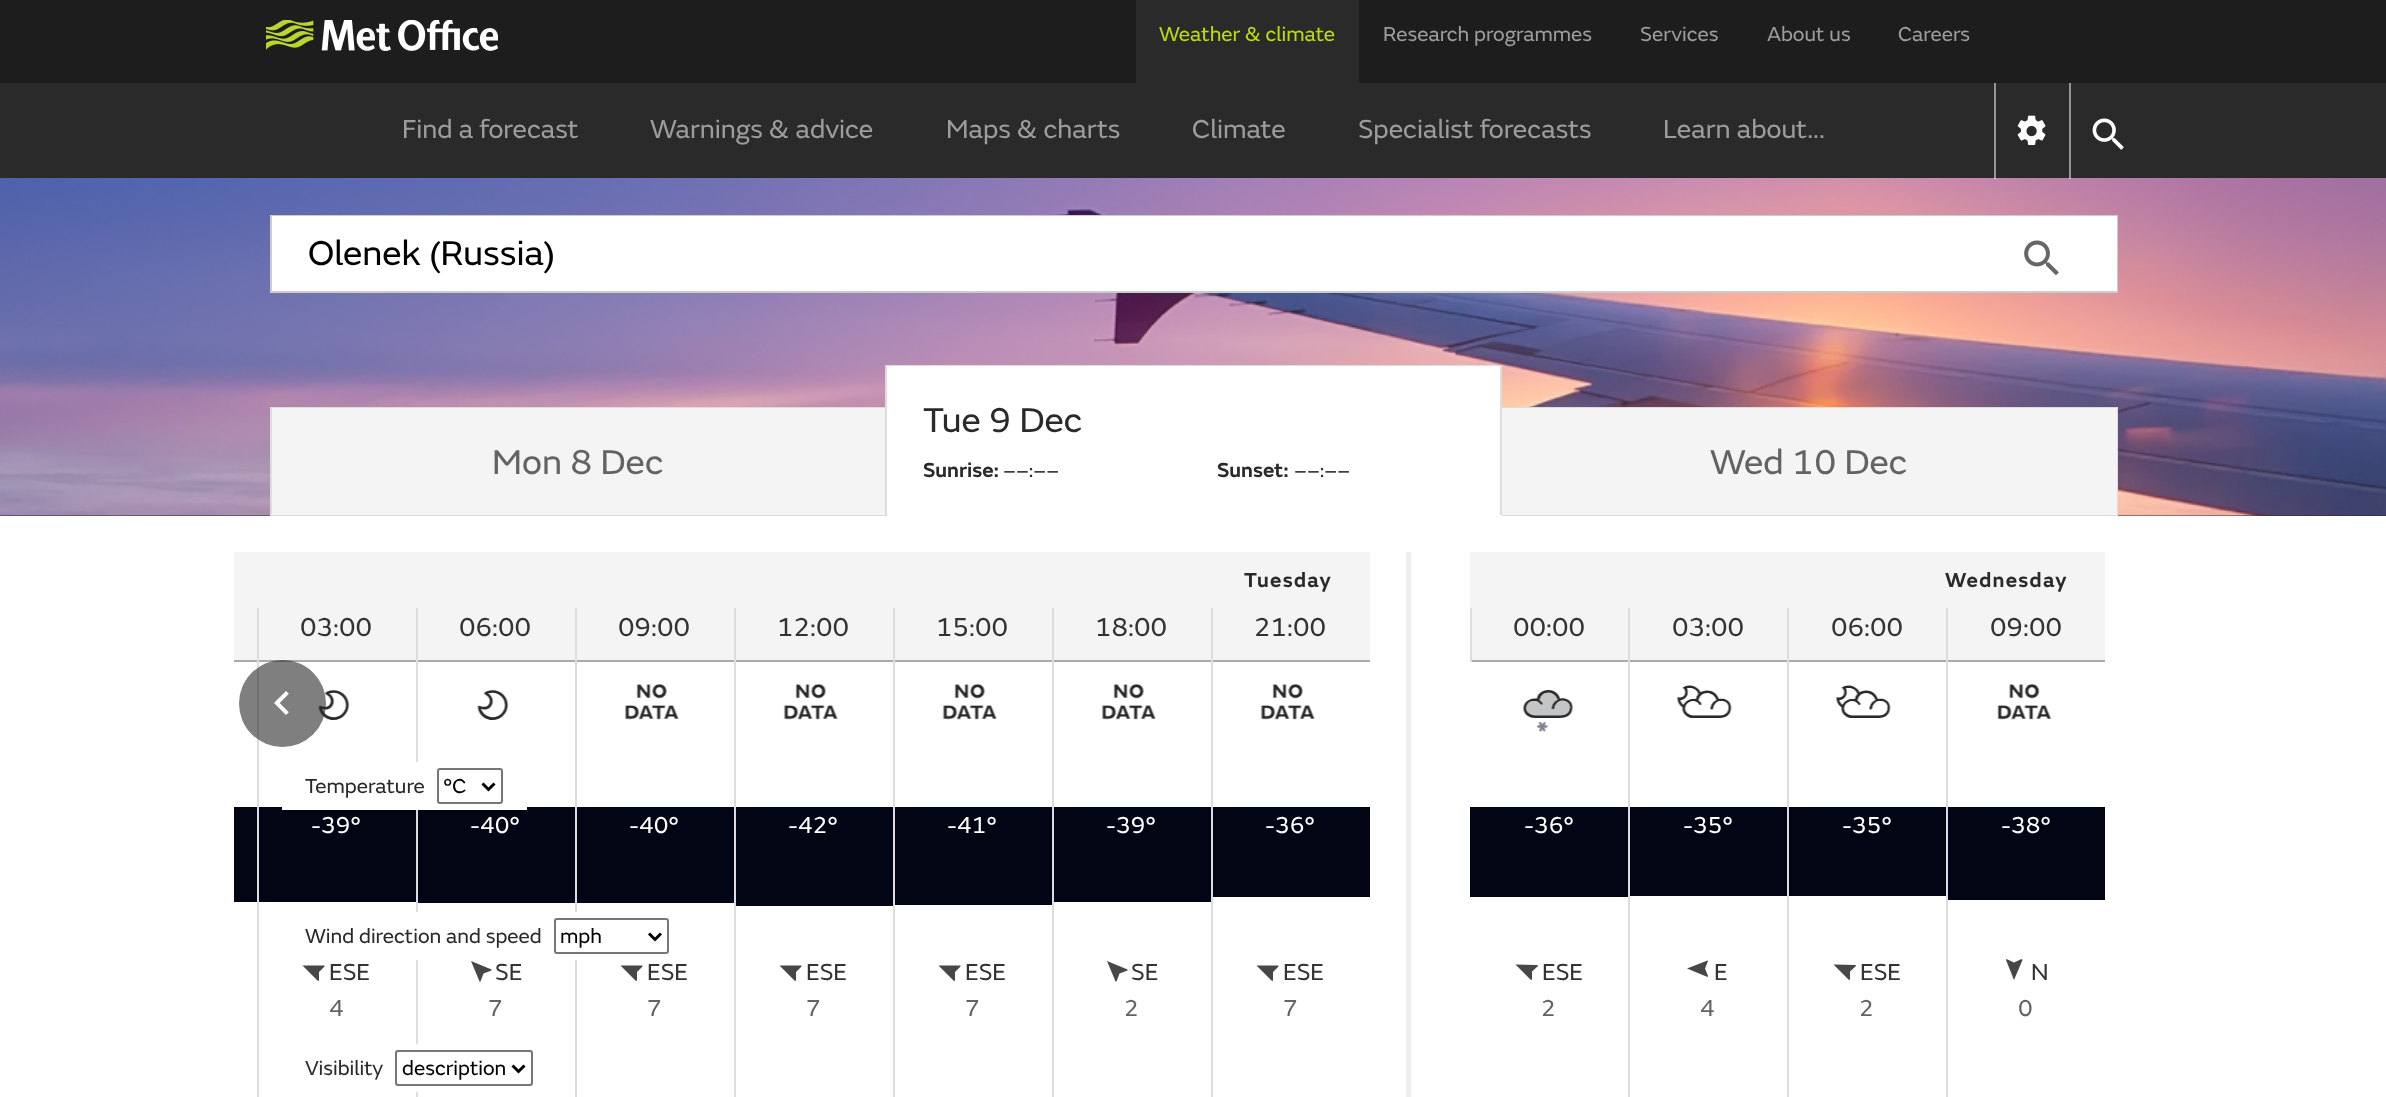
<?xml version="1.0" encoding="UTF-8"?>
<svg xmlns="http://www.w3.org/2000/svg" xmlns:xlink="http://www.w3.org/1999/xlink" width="2386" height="1097">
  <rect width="100%" height="100%" fill="#ffffff" />
  <rect width="2386" height="83" fill="#1d1d1d" />
  <image x="266" y="20" width="232" height="31" xlink:href="image1.png" />
  <rect x="1136" width="223" height="83" fill="#2a2a2a" />
  <rect y="83" width="2386" height="95" fill="#2a2a2a" />
  <rect y="515" width="2386" height="1" fill="#2a2a2a" />
  <image x="0" y="178" width="2386" height="338" xlink:href="image4.png" />
  <rect x="1994" y="83" width="2" height="96" fill="#ffffff" fill-opacity="0.5" />
  <image x="2017" y="115" width="29" height="30" xlink:href="image2.png" />
  <rect x="2069" y="83" width="2" height="96" fill="#ffffff" fill-opacity="0.5" />
  <image x="2092" y="118" width="32" height="32" xlink:href="image3.png" />
  <rect x="271" y="216" width="1846" height="76" fill="none" stroke="#cccccc" stroke-width="2" />
  <rect x="272" y="216" width="1845" height="75" fill="#ffffff" />
  <image x="2024" y="240" width="35" height="36" xlink:href="image5.png" />
  <rect x="270" y="407" width="615" height="1" fill="#dddddd" />
  <rect x="272" y="408" width="613" height="107" fill="#f4f4f4" />
  <rect x="270" y="515" width="615" height="1" fill="#dddddd" />
  <rect x="270" y="408" width="2" height="108" fill="#dddddd" />
  <rect x="885" y="365" width="617" height="1" fill="#dddddd" />
  <rect x="887" y="366" width="613" height="149" fill="#ffffff" />
  <rect x="1500" y="366" width="2" height="150" fill="#dddddd" />
  <rect x="885" y="515" width="617" height="1" fill="#ffffff" />
  <rect x="885" y="366" width="2" height="150" fill="#dddddd" />
  <rect x="1502" y="407" width="616" height="1" fill="#dddddd" />
  <rect x="1502" y="408" width="615" height="107" fill="#f4f4f4" />
  <rect x="2117" y="408" width="1" height="108" fill="#dddddd" />
  <rect x="1502" y="515" width="616" height="1" fill="#dddddd" />
  <rect x="234" y="660" width="1136" height="2" fill="#aaaaaa" />
  <rect x="257" y="608" width="2" height="489" fill="#dddddd" />
  <image x="318" y="690" width="32" height="30" xlink:href="image7.png" />
  <circle cx="282.5" cy="703.5" r="43.5" fill="#2a2a2a" fill-opacity="0.6" />
  <image x="274" y="691" width="15" height="24" xlink:href="image6.png" />
  <rect x="1406" y="552" width="5" height="545" fill="#eeeeee" />
  <rect x="234" y="552" width="1136" height="56" fill="#f4f4f4" />
  <rect x="234" y="608" width="23" height="52" fill="#f4f4f4" />
  <rect x="259" y="608" width="157" height="52" fill="#f4f4f4" />
  <rect x="418" y="608" width="157" height="52" fill="#f4f4f4" />
  <rect x="577" y="608" width="157" height="52" fill="#f4f4f4" />
  <rect x="736" y="608" width="157" height="52" fill="#f4f4f4" />
  <rect x="895" y="608" width="157" height="52" fill="#f4f4f4" />
  <rect x="1054" y="608" width="157" height="52" fill="#f4f4f4" />
  <rect x="1213" y="608" width="157" height="52" fill="#f4f4f4" />
  <rect x="416" y="608" width="2" height="489" fill="#dddddd" />
  <rect x="575" y="608" width="2" height="489" fill="#dddddd" />
  <rect x="734" y="608" width="2" height="489" fill="#dddddd" />
  <rect x="893" y="608" width="2" height="489" fill="#dddddd" />
  <rect x="1052" y="608" width="2" height="489" fill="#dddddd" />
  <rect x="1211" y="608" width="2" height="489" fill="#dddddd" />
  <image x="477" y="690" width="32" height="30" xlink:href="image7.png" />
  <image x="624" y="684" width="56" height="36" xlink:href="image8.png" />
  <image x="783" y="684" width="56" height="36" xlink:href="image8.png" />
  <image x="942" y="684" width="56" height="36" xlink:href="image8.png" />
  <image x="1101" y="684" width="56" height="36" xlink:href="image8.png" />
  <image x="1260" y="684" width="56" height="36" xlink:href="image8.png" />
  <rect x="234" y="807" width="23" height="95" fill="#010514" />
  <rect x="259" y="807" width="157" height="95" fill="#010514" />
  <rect x="418" y="807" width="157" height="96" fill="#010514" />
  <rect x="577" y="807" width="157" height="96" fill="#010514" />
  <rect x="736" y="807" width="157" height="99" fill="#010514" />
  <rect x="895" y="807" width="157" height="98" fill="#010514" />
  <rect x="1054" y="807" width="157" height="95" fill="#010514" />
  <rect x="1213" y="807" width="157" height="90" fill="#010514" />
  <path d="M 302.5 965.5 l 15.5 15.5 l 1 -0.5 v -8.5 l 5.5 -5.5 v -1 z" fill="#474747" />
  <path d="M 471 961 l 8.5 20.5 h 1 l 3 -8 l 8 -3 v -1 z" fill="#474747" />
  <path d="M 620.5 965.5 l 15.5 15.5 l 1 -0.5 v -8.5 l 5.5 -5.5 v -1 z" fill="#474747" />
  <path d="M 779.5 965.5 l 15.5 15.5 l 1 -0.5 v -8.5 l 5.5 -5.5 v -1 z" fill="#474747" />
  <path d="M 938.5 965.5 l 15.5 15.5 l 1 -0.5 v -8.5 l 5.5 -5.5 v -1 z" fill="#474747" />
  <path d="M 1107 961 l 8.5 20.5 h 1 l 3 -8 l 8 -3 v -1 z" fill="#474747" />
  <path d="M 1256.5 965.5 l 15.5 15.5 l 1 -0.5 v -8.5 l 5.5 -5.5 v -1 z" fill="#474747" />
  <rect x="1470" y="552" width="635" height="56" fill="#f4f4f4" />
  <rect x="1470" y="660" width="635" height="2" fill="#aaaaaa" />
  <rect x="1470" y="608" width="2" height="54" fill="#dddddd" />
  <rect x="1472" y="608" width="156" height="52" fill="#f4f4f4" />
  <rect x="1630" y="608" width="157" height="52" fill="#f4f4f4" />
  <rect x="1789" y="608" width="157" height="52" fill="#f4f4f4" />
  <rect x="1948" y="608" width="157" height="52" fill="#f4f4f4" />
  <rect x="1628" y="608" width="2" height="489" fill="#dddddd" />
  <rect x="1787" y="608" width="2" height="489" fill="#dddddd" />
  <rect x="1946" y="608" width="2" height="489" fill="#dddddd" />
  <image x="1523" y="690" width="50" height="42" xlink:href="image9.png" />
  <image x="1677" y="685" width="55" height="33" xlink:href="image10.png" />
  <image x="1836" y="685" width="55" height="33" xlink:href="image10.png" />
  <image x="1997" y="684" width="55" height="36" xlink:href="image11.png" />
  <rect x="1470" y="807" width="158" height="90" fill="#010514" />
  <rect x="1630" y="807" width="157" height="89" fill="#010514" />
  <rect x="1789" y="807" width="157" height="89" fill="#010514" />
  <rect x="1948" y="807" width="157" height="93" fill="#010514" />
  <path d="M 1515.5 964.5 l 15.5 15.5 l 1 -0.5 v -8 l 6 -5.5 l -0.5 -1 z" fill="#474747" />
  <path d="M 1687 968.5 l 20.5 8.5 l 0.5 -1 l -3 -7.5 l 3 -7.5 l -0.5 -0.5 z" fill="#474747" />
  <path d="M 1833.5 964.5 l 15.5 15.5 l 1 -0.5 v -8 l 6 -5.5 l -0.5 -1 z" fill="#474747" />
  <path d="M 2014 980 l 8.5 -20 l -1 -1 l -7.5 3.5 l -7.5 -3.5 l -0.5 1 z" fill="#474747" />
  <rect x="282" y="762" width="245" height="48" fill="#ffffff" />
  <rect x="438" y="769" width="64" height="34" rx="2" fill="none" stroke="#767676" stroke-width="2" />
  <path d="M 482.5 783.5 l 6 6 l 6 -6" fill="none" stroke="#000000" stroke-width="3" />
  <rect x="416" y="912" width="161" height="48" fill="#ffffff" />
  <rect x="555" y="919" width="113" height="34" rx="2" fill="none" stroke="#767676" stroke-width="2" />
  <path d="M 649 933.5 l 6 6 l 6 -6" fill="none" stroke="#000000" stroke-width="3" />
  <rect x="416" y="1044" width="2" height="48" fill="#ffffff" />
  <rect x="396" y="1051" width="136" height="34" rx="2" fill="none" stroke="#767676" stroke-width="2" />
  <path d="M 512.5 1065.5 l 6 6 l 6 -6" fill="none" stroke="#000000" stroke-width="3" />
  <text x="1159" y="41" style="font-family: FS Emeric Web; font-size: 21px; fill: #b9dc0c">Weather &amp; climate</text>
  <text x="1383" y="41" style="font-family: FS Emeric Web; font-size: 21px; fill: #9c9c9c">Research programmes</text>
  <text x="1640" y="41" style="font-family: FS Emeric Web; font-size: 21px; fill: #9c9c9c">Services</text>
  <text x="1767" y="41" style="font-family: FS Emeric Web; font-size: 21px; fill: #9c9c9c">About us</text>
  <text x="1898" y="41" style="font-family: FS Emeric Web; font-size: 21px; fill: #9c9c9c">Careers</text>
  <text x="402" y="138" style="font-family: FS Emeric Web; font-size: 27px; fill: #9c9c9c">Find a forecast</text>
  <text x="650" y="138" style="font-family: FS Emeric Web; font-size: 27px; fill: #9c9c9c">Warnings &amp; advice</text>
  <text x="946" y="138" style="font-family: FS Emeric Web; font-size: 27px; fill: #9c9c9c">Maps &amp; charts</text>
  <text x="1192" y="138" style="font-family: FS Emeric Web; font-size: 27px; fill: #9c9c9c">Climate</text>
  <text x="1358" y="138" style="font-family: FS Emeric Web; font-size: 27px; fill: #9c9c9c">Specialist forecasts</text>
  <text x="1663" y="138" style="font-family: FS Emeric Web; font-size: 27px; fill: #9c9c9c">Learn about...</text>
  <text x="308" y="265" style="font-family: FS Emeric Web; font-size: 36px; fill: #000000">Olenek (Russia)</text>
  <text x="492" y="474" style="font-family: FS Emeric Web; font-size: 36px; fill: #636363">Mon 8 Dec</text>
  <text x="923" y="432" style="font-family: FS Emeric Web; font-size: 36px; fill: #2a2a2a">Tue 9 Dec</text>
  <text x="923" y="477" style="font-family: FS Emeric Web; font-size: 21px; font-weight: 600; fill: #2a2a2a">Sunrise:</text>
  <text x="1003" y="477" style="font-family: FS Emeric Web; font-size: 21px; fill: #2a2a2a">––:––</text>
  <text x="1217" y="477" style="font-family: FS Emeric Web; font-size: 21px; font-weight: 600; fill: #2a2a2a">Sunset:</text>
  <text x="1294" y="477" style="font-family: FS Emeric Web; font-size: 21px; fill: #2a2a2a">––:––</text>
  <text x="1710" y="474" style="font-family: FS Emeric Web; font-size: 36px; fill: #636363">Wed 10 Dec</text>
  <text x="1244" y="587" style="font-family: FS Emeric Web; font-size: 21px; font-weight: 600; letter-spacing: 1.25px; fill: #2a2a2a">Tuesday</text>
  <text x="300" y="636" style="font-family: FS Emeric Web; font-size: 27px; fill: #333333">03:00</text>
  <text x="459" y="636" style="font-family: FS Emeric Web; font-size: 27px; fill: #333333">06:00</text>
  <text x="618" y="636" style="font-family: FS Emeric Web; font-size: 27px; fill: #333333">09:00</text>
  <text x="777" y="636" style="font-family: FS Emeric Web; font-size: 27px; fill: #333333">12:00</text>
  <text x="936" y="636" style="font-family: FS Emeric Web; font-size: 27px; fill: #333333">15:00</text>
  <text x="1095" y="636" style="font-family: FS Emeric Web; font-size: 27px; fill: #333333">18:00</text>
  <text x="1254" y="636" style="font-family: FS Emeric Web; font-size: 27px; fill: #333333">21:00</text>
  <text x="311" y="833" style="font-family: FS Emeric Web; font-size: 24px; fill: #ffffff">-39°</text>
  <text x="470" y="833" style="font-family: FS Emeric Web; font-size: 24px; fill: #ffffff">-40°</text>
  <text x="629" y="833" style="font-family: FS Emeric Web; font-size: 24px; fill: #ffffff">-40°</text>
  <text x="788" y="833" style="font-family: FS Emeric Web; font-size: 24px; fill: #ffffff">-42°</text>
  <text x="947" y="833" style="font-family: FS Emeric Web; font-size: 24px; fill: #ffffff">-41°</text>
  <text x="1106" y="833" style="font-family: FS Emeric Web; font-size: 24px; fill: #ffffff">-39°</text>
  <text x="1265" y="833" style="font-family: FS Emeric Web; font-size: 24px; fill: #ffffff">-36°</text>
  <text x="329" y="980" style="font-family: FS Emeric Web; font-size: 24px; fill: #333333">ESE</text>
  <text x="329" y="1016" style="font-family: FS Emeric Web; font-size: 24px; fill: #636363">4</text>
  <text x="495" y="980" style="font-family: FS Emeric Web; font-size: 24px; fill: #333333">SE</text>
  <text x="488" y="1016" style="font-family: FS Emeric Web; font-size: 24px; fill: #636363">7</text>
  <text x="647" y="980" style="font-family: FS Emeric Web; font-size: 24px; fill: #333333">ESE</text>
  <text x="647" y="1016" style="font-family: FS Emeric Web; font-size: 24px; fill: #636363">7</text>
  <text x="806" y="980" style="font-family: FS Emeric Web; font-size: 24px; fill: #333333">ESE</text>
  <text x="806" y="1016" style="font-family: FS Emeric Web; font-size: 24px; fill: #636363">7</text>
  <text x="965" y="980" style="font-family: FS Emeric Web; font-size: 24px; fill: #333333">ESE</text>
  <text x="965" y="1016" style="font-family: FS Emeric Web; font-size: 24px; fill: #636363">7</text>
  <text x="1131" y="980" style="font-family: FS Emeric Web; font-size: 24px; fill: #333333">SE</text>
  <text x="1124" y="1016" style="font-family: FS Emeric Web; font-size: 24px; fill: #636363">2</text>
  <text x="1283" y="980" style="font-family: FS Emeric Web; font-size: 24px; fill: #333333">ESE</text>
  <text x="1283" y="1016" style="font-family: FS Emeric Web; font-size: 24px; fill: #636363">7</text>
  <text x="1945" y="587" style="font-family: FS Emeric Web; font-size: 21px; font-weight: 600; letter-spacing: 1.25px; fill: #2a2a2a">Wednesday</text>
  <text x="1513" y="636" style="font-family: FS Emeric Web; font-size: 27px; fill: #333333">00:00</text>
  <text x="1672" y="636" style="font-family: FS Emeric Web; font-size: 27px; fill: #333333">03:00</text>
  <text x="1831" y="636" style="font-family: FS Emeric Web; font-size: 27px; fill: #333333">06:00</text>
  <text x="1990" y="636" style="font-family: FS Emeric Web; font-size: 27px; fill: #333333">09:00</text>
  <text x="1524" y="833" style="font-family: FS Emeric Web; font-size: 24px; fill: #ffffff">-36°</text>
  <text x="1683" y="833" style="font-family: FS Emeric Web; font-size: 24px; fill: #ffffff">-35°</text>
  <text x="1842" y="833" style="font-family: FS Emeric Web; font-size: 24px; fill: #ffffff">-35°</text>
  <text x="2001" y="833" style="font-family: FS Emeric Web; font-size: 24px; fill: #ffffff">-38°</text>
  <text x="1542" y="980" style="font-family: FS Emeric Web; font-size: 24px; fill: #333333">ESE</text>
  <text x="1541" y="1016" style="font-family: FS Emeric Web; font-size: 24px; fill: #636363">2</text>
  <text x="1714" y="980" style="font-family: FS Emeric Web; font-size: 24px; fill: #333333">E</text>
  <text x="1700" y="1016" style="font-family: FS Emeric Web; font-size: 24px; fill: #636363">4</text>
  <text x="1860" y="980" style="font-family: FS Emeric Web; font-size: 24px; fill: #333333">ESE</text>
  <text x="1859" y="1016" style="font-family: FS Emeric Web; font-size: 24px; fill: #636363">2</text>
  <text x="2031" y="980" style="font-family: FS Emeric Web; font-size: 24px; fill: #333333">N</text>
  <text x="2018" y="1016" style="font-family: FS Emeric Web; font-size: 24px; fill: #636363">0</text>
  <text x="305" y="793" style="font-family: FS Emeric Web; font-size: 21px; fill: #2a2a2a">Temperature</text>
  <text x="443" y="793" style="font-family: FS Emeric Web; font-size: 21px; fill: #000000">°C</text>
  <text x="305" y="943" style="font-family: FS Emeric Web; font-size: 21px; fill: #2a2a2a">Wind direction and speed</text>
  <text x="560" y="943" style="font-family: FS Emeric Web; font-size: 21px; fill: #000000">mph</text>
  <text x="305" y="1075" style="font-family: FS Emeric Web; font-size: 21px; fill: #2a2a2a">Visibility</text>
  <text x="402" y="1075" style="font-family: FS Emeric Web; font-size: 21px; fill: #000000">description</text>
</svg>
